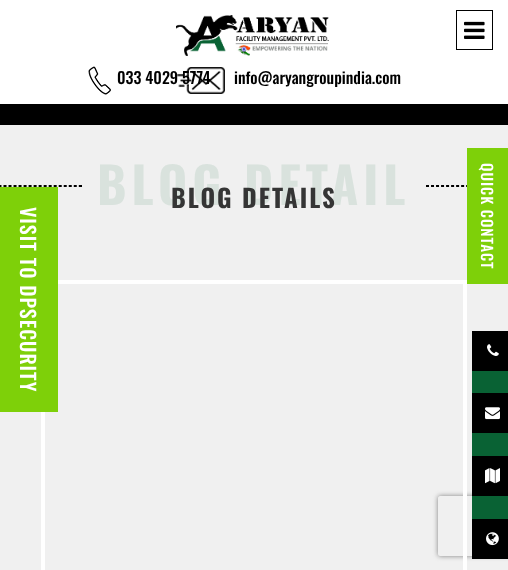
<?xml version="1.0" encoding="UTF-8"?>
<svg xmlns="http://www.w3.org/2000/svg" xmlns:xlink="http://www.w3.org/1999/xlink" width="508" height="570">
  <defs>
    <clipPath id="clip1"><path d="M 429 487 h 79 v 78 h -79 z m 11 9 h 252 c 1 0 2 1 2 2 v 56 c 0 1 -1 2 -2 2 h -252 c -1 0 -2 -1 -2 -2 v -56 c 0 -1 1 -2 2 -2 z" clip-rule="evenodd" /></clipPath>
  </defs>
  <rect width="100%" height="100%" fill="#ffffff" />
  <rect y="104" width="508" height="21" fill="#000000" />
  <rect x="456.5" y="10.5" width="36" height="39" fill="none" stroke="#000000" />
  <image x="464" y="21" width="21" height="18" xlink:href="image1.png" />
  <image x="176" y="15" width="153" height="41" xlink:href="image2.png" />
  <image x="88" y="66" width="23" height="29" xlink:href="image3.png" />
  <rect y="125" width="508" height="445" fill="#f0f0f0" />
  <g clip-path="url(#clip1)">
    <rect x="438" y="496" width="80" height="60" rx="2" fill="#808080" filter="blur(2.5px)" />
  </g>
  <rect x="43" y="282" width="422" height="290" fill="none" stroke="#ffffff" stroke-width="4" />
  <rect y="187" width="58" height="225" fill="#7ed009" />
  <path d="M -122 185.5 h 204" fill="none" stroke="#000000" stroke-dasharray="3 2.02" />
  <rect x="81" y="185" width="1" height="2" fill="#000000" />
  <path d="M -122 186.5 h 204" fill="none" stroke="#000000" stroke-dasharray="3 2.02" />
  <path d="M 426 185.5 h 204" fill="none" stroke="#000000" stroke-dasharray="3 2.02" />
  <path d="M 426 186.5 h 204" fill="none" stroke="#000000" stroke-dasharray="3 2.02" />
  <rect x="467" y="148" width="41" height="136" fill="#7ed009" />
  <rect x="472" y="331" width="36" height="40" fill="#000000" />
  <image x="487" y="344" width="12" height="12" xlink:href="image5.png" />
  <rect x="472" y="371" width="36" height="22" fill="#096234" />
  <rect x="472" y="393" width="36" height="40" fill="#000000" />
  <image x="485" y="407" width="15" height="13" xlink:href="image6.png" />
  <rect x="472" y="433" width="36" height="23" fill="#096234" />
  <rect x="472" y="456" width="36" height="40" fill="#000000" />
  <image x="485" y="468" width="15" height="16" xlink:href="image7.png" />
  <rect x="472" y="496" width="36" height="23" fill="#096234" />
  <rect x="472" y="519" width="36" height="40" fill="#000000" />
  <image x="486" y="532" width="13" height="14" xlink:href="image8.png" />
  <text x="117" y="84" style="font-family: Oswald; font-size: 16px; font-weight: 500; fill: #000000">033 4029 5774</text>
  <image x="177" y="67" width="48" height="27" xlink:href="image4.png" />
  <text x="234" y="84" style="font-family: Oswald; font-size: 16px; font-weight: 500; fill: #000000">info@aryangroupindia.com</text>
  <text x="20" y="207" transform="rotate(90 20 207)" style="font-family: Oswald; font-size: 20px; font-weight: 500; letter-spacing: 1px; fill: #ffffff">VISIT TO DPSECURITY</text>
  <text x="97" y="205" style="font-family: Oswald; font-size: 50px; font-weight: bold; letter-spacing: 5px; fill: #d9e2dd">BLOG DETAIL</text>
  <text x="171" y="208" style="font-family: Oswald; font-size: 25px; font-weight: bold; letter-spacing: 2px; fill: #353535">BLOG DETAILS</text>
  <text x="481" y="163" transform="rotate(90 481 163)" style="font-family: Oswald; font-size: 15px; font-weight: 500; letter-spacing: 1px; fill: #ffffff">QUICK CONTACT</text>
</svg>
